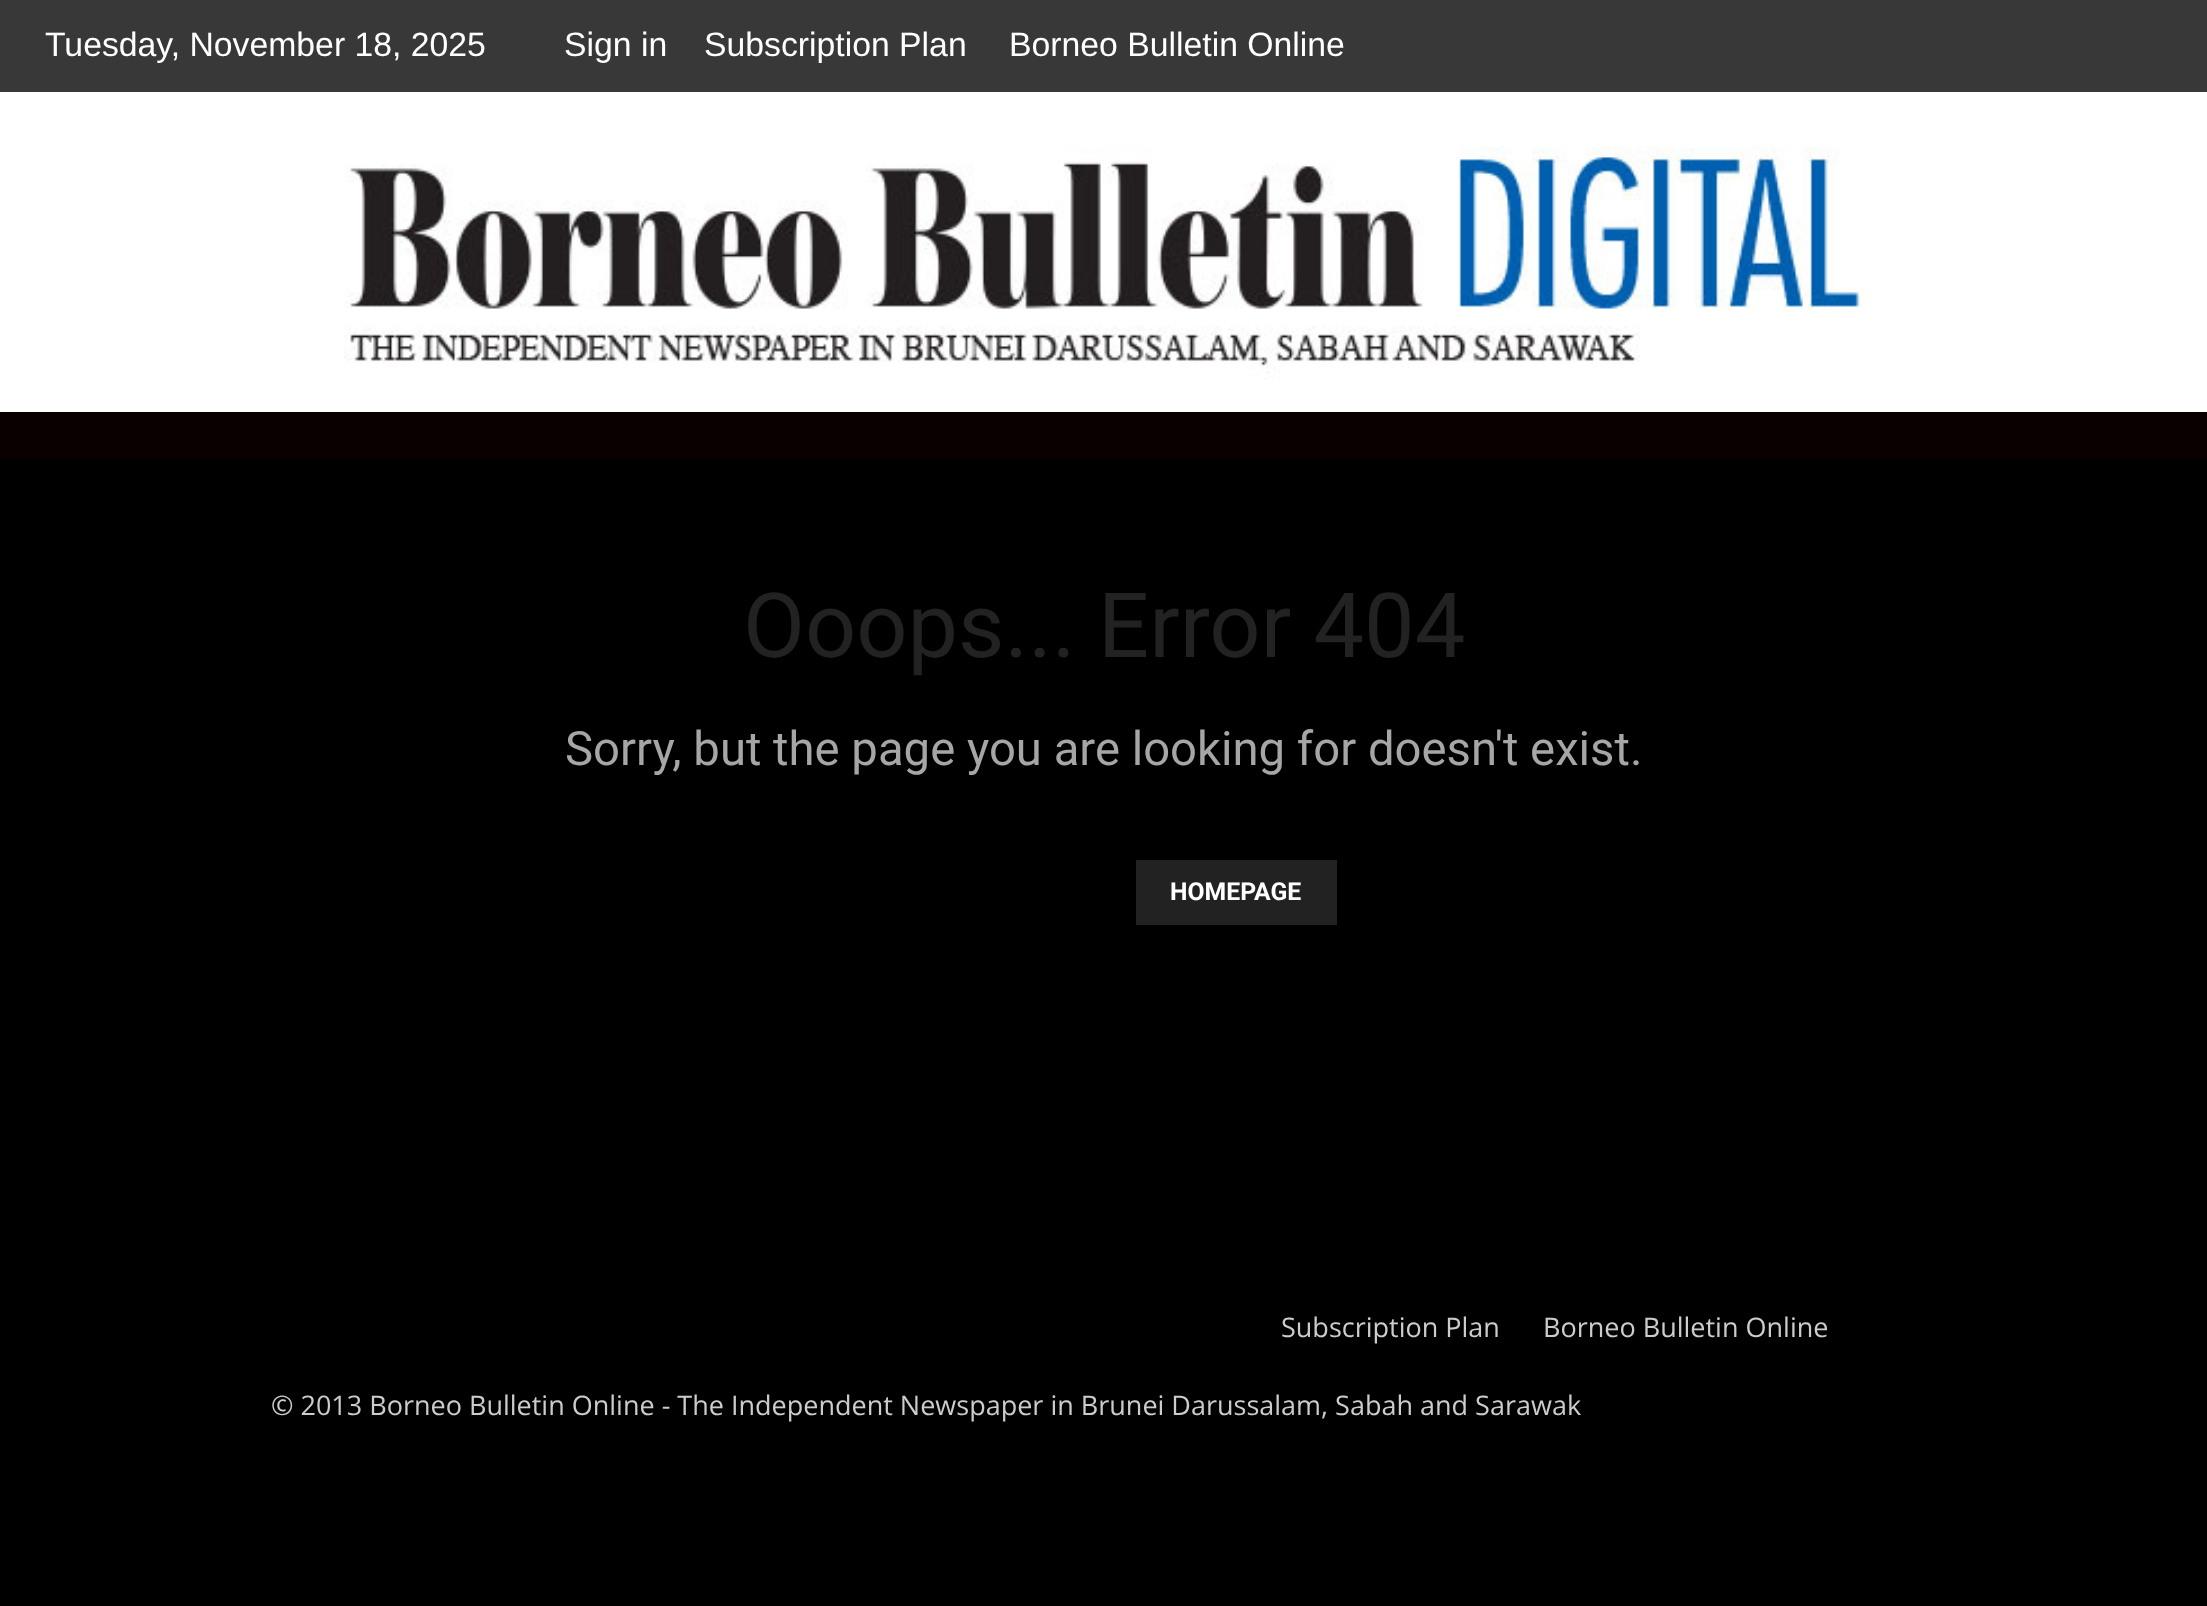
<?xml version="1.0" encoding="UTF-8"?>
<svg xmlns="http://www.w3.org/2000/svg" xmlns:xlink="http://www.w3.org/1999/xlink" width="2207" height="1606">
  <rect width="100%" height="100%" fill="#000000" />
  <rect width="2207" height="92" fill="#383838" />
  <rect y="92" width="2207" height="320" fill="#ffffff" />
  <image x="344" y="146" width="1521" height="234" xlink:href="image1.png" />
  <rect y="412" width="2207" height="47" fill="#0a0000" />
  <rect x="1136" y="860" width="201" height="65" fill="#222222" />
  <text x="45" y="56" style="font-family: Liberation Sans; font-size: 33.75px; fill: #ffffff">Tuesday, November 18, 2025</text>
  <text x="564" y="56" style="font-family: Liberation Sans; font-size: 33.75px; fill: #ffffff">Sign in</text>
  <text x="704" y="56" style="font-family: Liberation Sans; font-size: 33.75px; fill: #ffffff">Subscription Plan</text>
  <text x="1009" y="56" style="font-family: Liberation Sans; font-size: 33.75px; fill: #ffffff">Borneo Bulletin Online</text>
  <text x="743" y="657" style="font-family: Roboto; font-size: 90px; fill: #222222">Ooops... Error 404</text>
  <text x="565" y="765" style="font-family: Roboto; font-size: 47.25px; fill: #a6a6a6">Sorry, but the page you are looking for doesn't exist.</text>
  <text x="1170" y="900" style="font-family: Roboto; font-size: 24.75px; font-weight: bold; fill: #ffffff">HOMEPAGE</text>
  <text x="1281" y="1337" style="font-family: Open Sans; font-size: 27px; fill: #cccccc">Subscription Plan</text>
  <text x="1543" y="1337" style="font-family: Open Sans; font-size: 27px; fill: #cccccc">Borneo Bulletin Online</text>
  <text x="271" y="1415" style="font-family: Open Sans; font-size: 27px; fill: #cccccc">© 2013 Borneo Bulletin Online - The Independent Newspaper in Brunei Darussalam, Sabah and Sarawak</text>
</svg>
